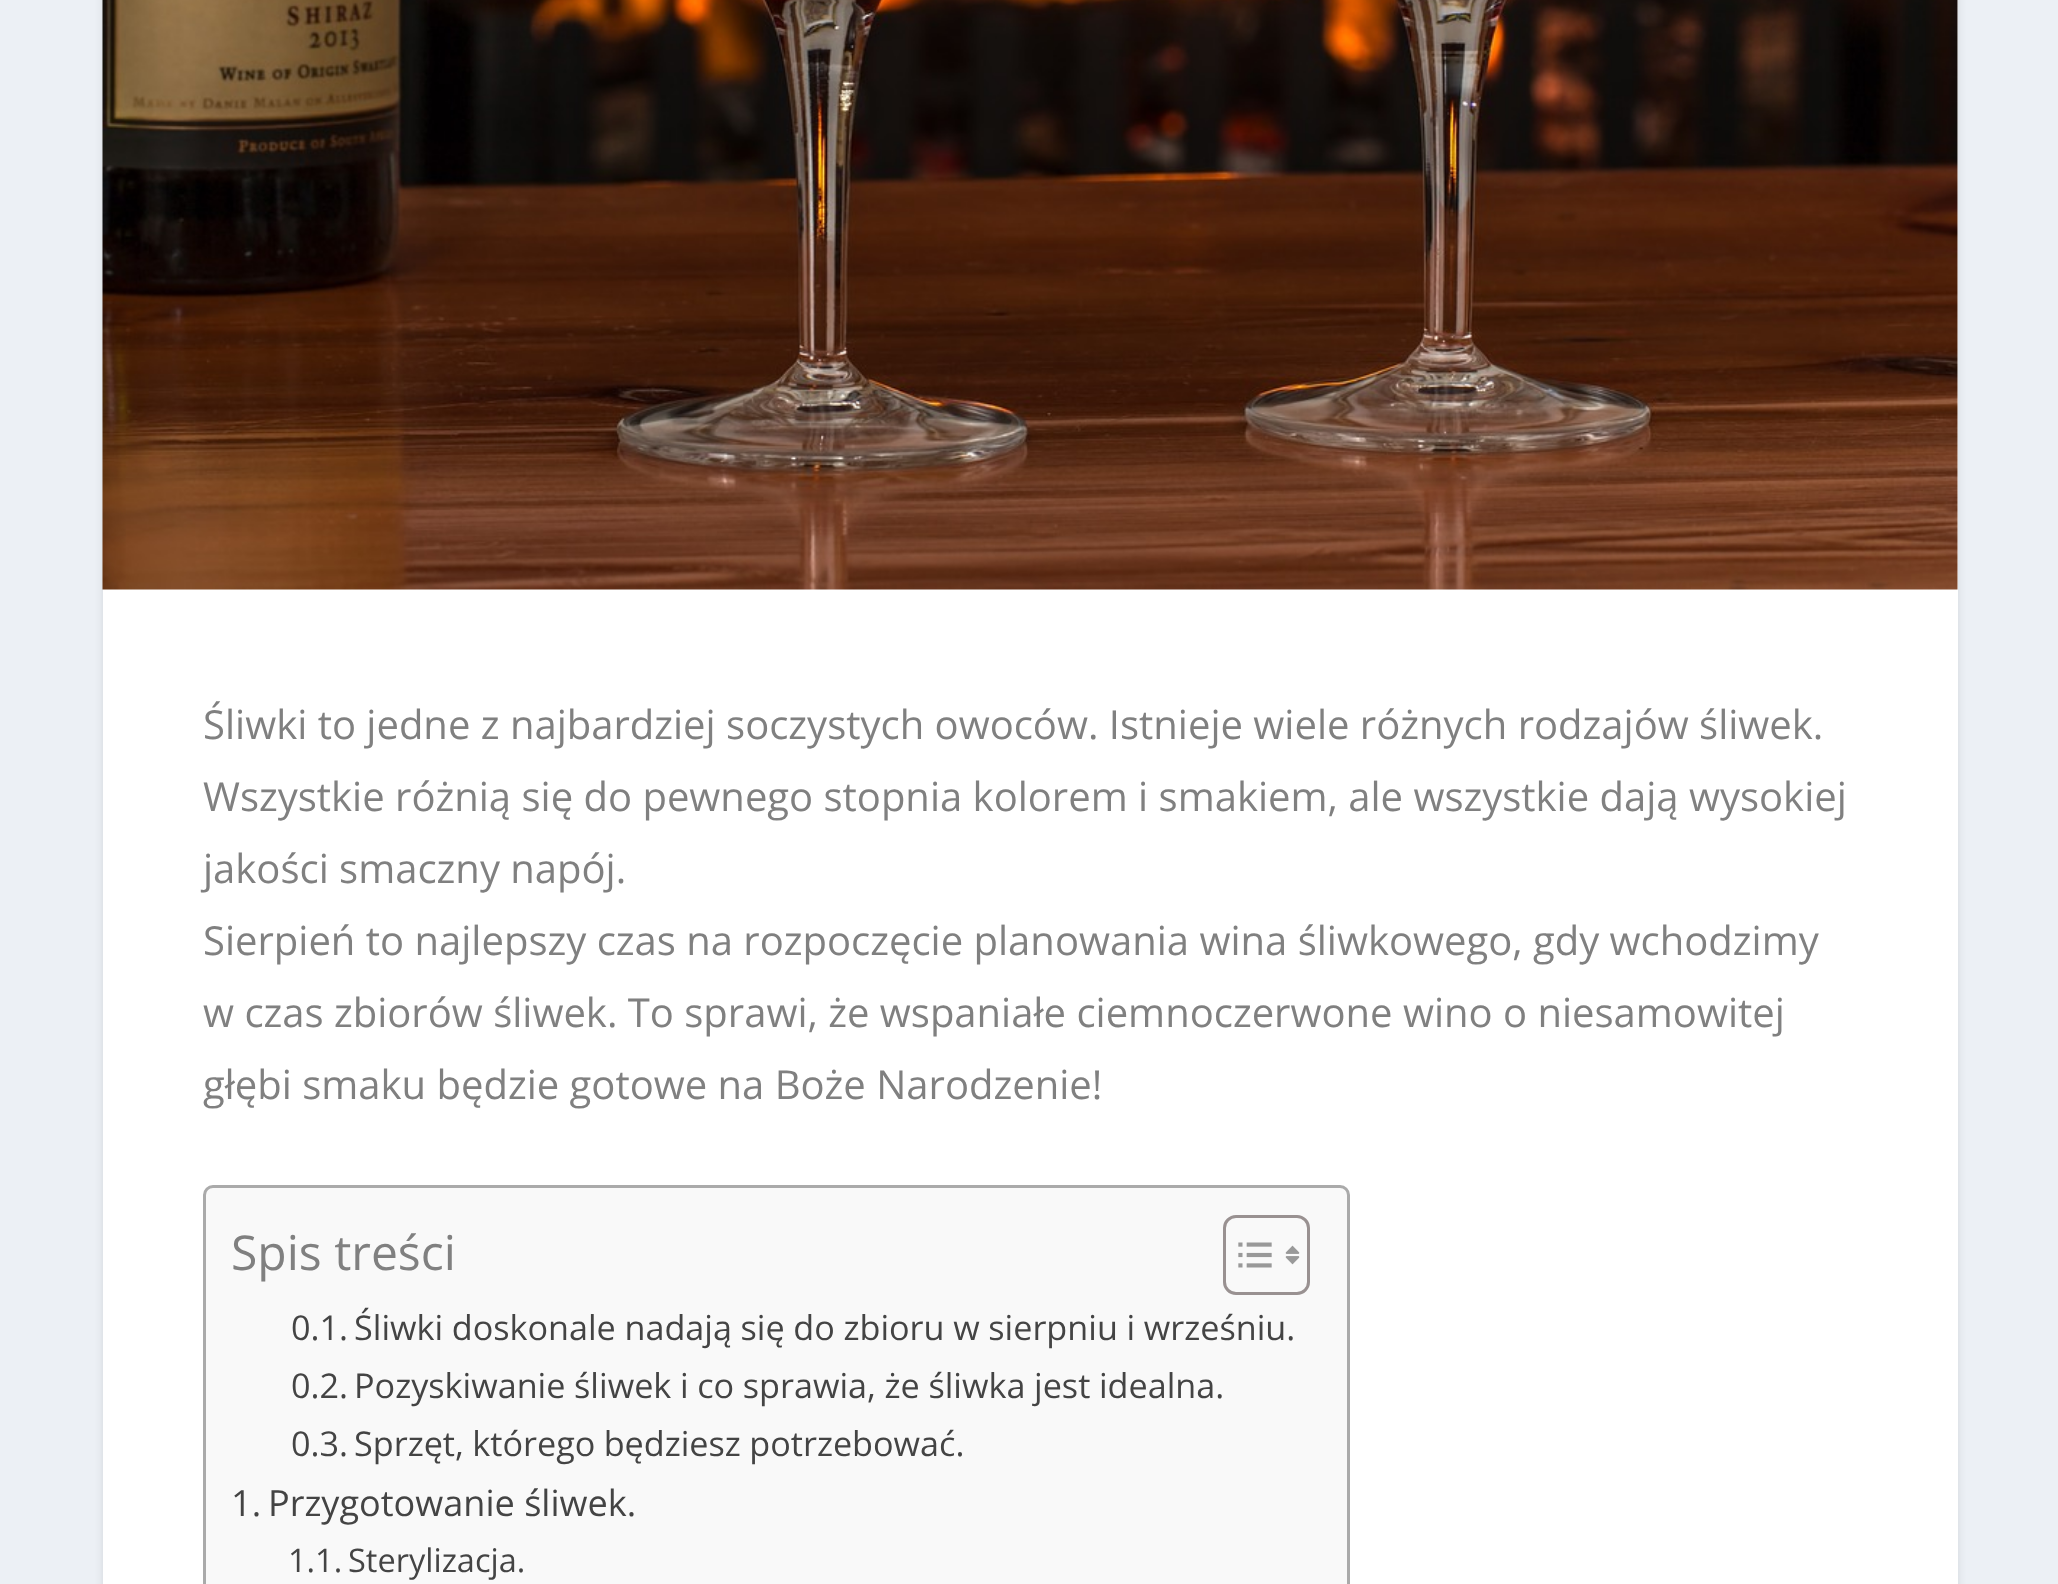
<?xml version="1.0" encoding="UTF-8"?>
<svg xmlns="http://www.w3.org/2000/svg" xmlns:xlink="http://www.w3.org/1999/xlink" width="2058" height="1584">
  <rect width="100%" height="100%" fill="#ecf0f5" />
  <rect x="103" y="-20" width="1855" height="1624" rx="8" fill="#000000" fill-opacity="0.1" filter="blur(4px)" />
  <rect x="103" width="1855" height="1584" fill="#ffffff" />
  <image x="102" y="0" width="1856" height="590" xlink:href="image1.png" />
  <rect x="204.5" y="1186.5" width="1144" height="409" rx="8.5" fill="#f9f9f9" stroke="#aaaaaa" stroke-width="3" />
  <rect x="1224.5" y="1216.5" width="84" height="77" rx="11.5" fill="none" stroke="#999191" stroke-width="3" />
  <image x="1238" y="1242" width="34" height="26" xlink:href="image2.png" />
  <image x="1285" y="1245" width="15" height="20" xlink:href="image3.png" />
  <text x="203" y="739" style="font-family: Open Sans; font-size: 40px; fill: #808080">Śliwki to jedne z najbardziej soczystych owoców. Istnieje wiele różnych rodzajów śliwek.</text>
  <text x="203" y="811" style="font-family: Open Sans; font-size: 40px; fill: #808080">Wszystkie różnią się do pewnego stopnia kolorem i smakiem, ale wszystkie dają wysokiej</text>
  <text x="203" y="883" style="font-family: Open Sans; font-size: 40px; fill: #808080">jakości smaczny napój.</text>
  <text x="203" y="955" style="font-family: Open Sans; font-size: 40px; fill: #808080">Sierpień to najlepszy czas na rozpoczęcie planowania wina śliwkowego, gdy wchodzimy</text>
  <text x="203" y="1027" style="font-family: Open Sans; font-size: 40px; fill: #808080">w czas zbiorów śliwek. To sprawi, że wspaniałe ciemnoczerwone wino o niesamowitej</text>
  <text x="203" y="1099" style="font-family: Open Sans; font-size: 40px; fill: #808080">głębi smaku będzie gotowe na Boże Narodzenie!</text>
  <text x="231" y="1270" style="font-family: Open Sans; font-size: 48px; fill: #808080">Spis treści</text>
  <text x="291" y="1340" style="font-family: Open Sans; font-size: 34.2px; fill: #444444">0.1.</text>
  <text x="354" y="1340" word-spacing="-0.25" style="font-family: Open Sans; font-size: 34.2px; fill: #444444">Śliwki doskonale nadają się do zbioru w sierpniu i wrześniu.</text>
  <text x="291" y="1398" style="font-family: Open Sans; font-size: 34.2px; fill: #444444">0.2.</text>
  <text x="354" y="1398" word-spacing="-0.25" style="font-family: Open Sans; font-size: 34.2px; fill: #444444">Pozyskiwanie śliwek i co sprawia, że śliwka jest idealna.</text>
  <text x="291" y="1456" style="font-family: Open Sans; font-size: 34.2px; fill: #444444">0.3.</text>
  <text x="354" y="1456" word-spacing="-0.5" style="font-family: Open Sans; font-size: 34.2px; fill: #444444">Sprzęt, którego będziesz potrzebować.</text>
  <text x="231" y="1516" style="font-family: Open Sans; font-size: 36.1px; fill: #444444">1.</text>
  <text x="268" y="1516" style="font-family: Open Sans; font-size: 36.1px; fill: #444444">Przygotowanie śliwek.</text>
  <text x="288" y="1572" style="font-family: Open Sans; font-size: 32.5px; fill: #444444">1.1.</text>
  <text x="348" y="1572" style="font-family: Open Sans; font-size: 32.5px; fill: #444444">Sterylizacja.</text>
</svg>
